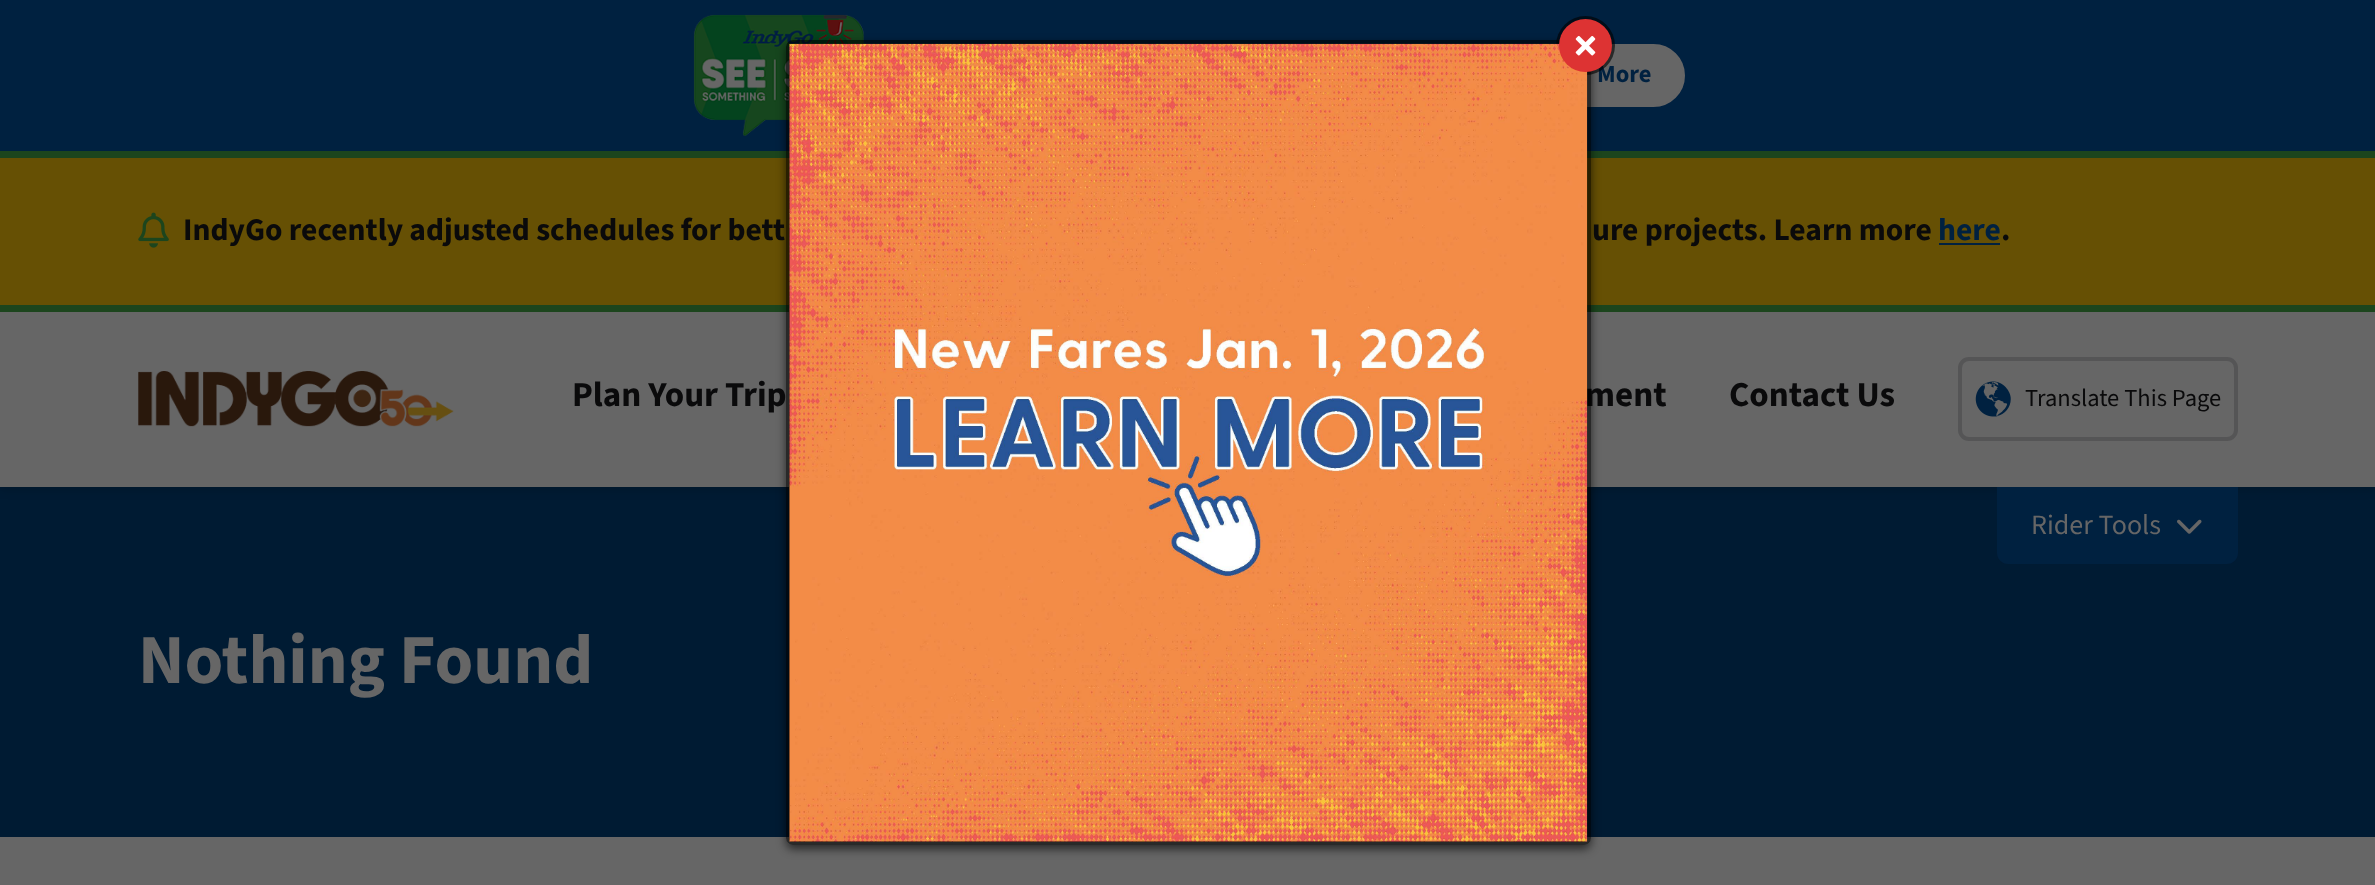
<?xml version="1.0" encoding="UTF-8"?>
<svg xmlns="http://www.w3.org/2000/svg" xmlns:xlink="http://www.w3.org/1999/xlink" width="2375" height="885">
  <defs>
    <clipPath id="clip1"><path d="M 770 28 h 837 v 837 h -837 z m 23 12 h 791 c 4 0 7 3 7 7 v 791 c 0 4 -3 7 -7 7 h -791 c -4 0 -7 -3 -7 -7 v -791 c 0 -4 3 -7 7 -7 z" clip-rule="evenodd" /></clipPath>
  </defs>
  <rect width="100%" height="100%" fill="#666666" />
  <rect y="487" width="2375" height="350" fill="#001b33" />
  <rect y="4" width="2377" height="486" fill="#000000" fill-opacity="0.15" filter="blur(5px)" />
  <rect width="2375" height="151" fill="#002140" />
  <rect y="151" width="2375" height="7" fill="#1c451d" />
  <image x="693" y="14" width="171" height="122" xlink:href="image3.png" />
  <rect x="1497" y="45" width="187" height="61" rx="30.5" fill="#666666" stroke="#666666" stroke-width="2" />
  <rect y="158" width="2375" height="147" fill="#665004" />
  <rect y="305" width="2375" height="7" fill="#1c451d" />
  <rect y="312" width="2375" height="175" fill="#666666" />
  <g clip-path="url(#clip1)">
    <rect x="786" y="44" width="805" height="805" rx="7" fill="#000000" fill-opacity="0.6" filter="blur(5px)" />
  </g>
  <image x="138" y="212" width="31" height="36" xlink:href="image4.png" />
  <rect x="1939" y="243" width="61" height="2" fill="#002140" />
  <image x="138" y="371" width="316" height="56" xlink:href="image5.png" />
  <rect x="1960" y="359" width="276" height="80" rx="9" fill="none" stroke="#555556" stroke-width="4" />
  <image x="1975" y="381" width="36" height="36" xlink:href="image6.png" />
  <path d="M 1997 487 h 241 v 66 c 0 6 -5 11 -11 11 h -219 c -6 0 -11 -5 -11 -11 z" fill="#002140" />
  <image x="2177" y="519" width="25" height="15" xlink:href="image7.png" />
  <text x="1597" y="82" style="font-family: 'Source Sans 3'; font-size: 24.5px; font-weight: bold; fill: #002140">More</text>
  <text x="183" y="240" style="font-family: 'Source Sans 3'; font-size: 31.5px; font-weight: bold; fill: #0a0a0b">IndyGo recently adjusted schedules for bett</text>
  <text x="1592" y="240" style="font-family: 'Source Sans 3'; font-size: 31.5px; font-weight: bold; fill: #0a0a0b">ure projects. Learn more</text>
  <text x="1938" y="240" style="font-family: 'Source Sans 3'; font-size: 31.5px; font-weight: bold; fill: #002140">here</text>
  <text x="2001" y="240" style="font-family: 'Source Sans 3'; font-size: 31.5px; font-weight: bold; fill: #0a0a0b">.</text>
  <text x="572" y="406" style="font-family: 'Source Sans 3'; font-size: 35px; font-weight: bold; fill: #0a0a0b">Plan Your Trip</text>
  <text x="1585" y="406" style="font-family: 'Source Sans 3'; font-size: 35px; font-weight: bold; fill: #0a0a0b">ment</text>
  <rect x="788" y="42" width="801" height="801" rx="5" fill="none" stroke="#000000" stroke-opacity="0.6" stroke-width="4" />
  <circle cx="1585.5" cy="45.5" r="29.5" fill="#000000" fill-opacity="0.6" />
  <rect x="789" y="44" width="798" height="798" rx="4" fill="#000000" />
  <image x="789" y="43" width="799" height="799" xlink:href="image2.png" />
  <circle cx="1585.5" cy="45.5" r="26.5" fill="#dd3333" />
  <image x="1575" y="36" width="21" height="20" xlink:href="image1.png" />
  <text x="1729" y="406" style="font-family: 'Source Sans 3'; font-size: 35px; font-weight: bold; fill: #0a0a0b">Contact Us</text>
  <text x="2025" y="406" style="font-family: 'Source Sans 3'; font-size: 24.5px; fill: #0a0a0b">Translate This Page</text>
  <text x="2031" y="534" style="font-family: 'Source Sans 3'; font-size: 28px; fill: #666666">Rider Tools</text>
  <text x="138" y="683" style="font-family: 'Source Sans 3'; font-size: 70px; font-weight: bold; fill: #666666">Nothing Found</text>
</svg>
